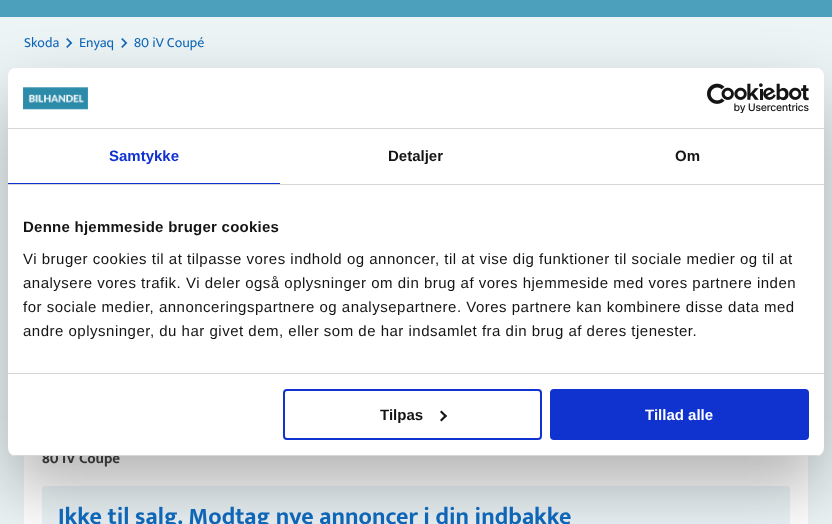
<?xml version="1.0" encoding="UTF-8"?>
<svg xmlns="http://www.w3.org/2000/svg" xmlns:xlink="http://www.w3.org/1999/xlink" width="832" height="524">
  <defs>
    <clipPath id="clip1"><rect x="8" y="68" width="816" height="388" rx="8" /></clipPath>
  </defs>
  <rect width="100%" height="100%" fill="#ecf4f6" />
  <rect width="832" height="17" fill="#4ca0bb" />
  <image x="66" y="38" width="7" height="10" xlink:href="image1.png" />
  <image x="121" y="38" width="7" height="10" xlink:href="image1.png" />
  <rect x="24" y="456" width="784" height="68" fill="#ffffff" />
  <rect x="42" y="486" width="748" height="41" rx="3" fill="#ecf4f7" />
  <rect x="8" y="100" width="816" height="388" rx="8" fill="#000000" fill-opacity="0.3" filter="blur(34px)" />
  <text x="24" y="47" style="font-family: Mukta; font-size: 14px; fill: #1066b6">Skoda</text>
  <text x="79" y="47" style="font-family: Mukta; font-size: 14px; fill: #1066b6">Enyaq</text>
  <text x="134" y="47" style="font-family: Mukta; font-size: 14px; fill: #1066b6">80 iV Coupé</text>
  <text x="42" y="463" style="font-family: Mukta; font-size: 15px; font-weight: bold; fill: #343434">80 iV Coupé</text>
  <text x="58" y="524" style="font-family: Mukta; font-size: 24px; font-weight: bold; fill: #1066b6">Ikke til salg. Modtag nye annoncer i din indbakke</text>
  <rect x="8" y="68" width="816" height="388" rx="8" fill="#ffffff" />
  <rect x="8" y="128" width="816" height="1" fill="#d6d6d6" />
  <image x="23" y="87" width="65" height="23" xlink:href="image2.png" />
  <image x="707" y="83" width="102" height="30" xlink:href="image3.png" />
  <rect x="8" y="184" width="816" height="1" fill="#d6d6d6" />
  <rect x="8" y="183" width="272" height="1" fill="#1032cf" />
  <text x="109" y="161" style="font-family: Liberation Sans; font-size: 15px; font-weight: bold; fill: #1032cf">Samtykke</text>
  <text x="388" y="161" style="font-family: Liberation Sans; font-size: 15px; font-weight: bold; fill: #141414">Detaljer</text>
  <text x="675" y="161" style="font-family: Liberation Sans; font-size: 15px; font-weight: bold; fill: #141414">Om</text>
  <rect x="8" y="373" width="816" height="1" fill="#d6d6d6" />
  <text x="23" y="232" style="font-family: Liberation Sans; font-size: 15px; font-weight: bold; letter-spacing: 0.25px; fill: #141414">Denne hjemmeside bruger cookies</text>
  <text x="23" y="264" style="font-family: Liberation Sans; font-size: 15px; letter-spacing: 0.5px; fill: #141414">Vi bruger cookies til at tilpasse vores indhold og annoncer, til at vise dig funktioner til sociale medier og til at</text>
  <text x="23" y="288" style="font-family: Liberation Sans; font-size: 15px; letter-spacing: 0.5px; fill: #141414">analysere vores trafik. Vi deler også oplysninger om din brug af vores hjemmeside med vores partnere inden</text>
  <text x="23" y="312" style="font-family: Liberation Sans; font-size: 15px; letter-spacing: 0.5px; fill: #141414">for sociale medier, annonceringspartnere og analysepartnere. Vores partnere kan kombinere disse data med</text>
  <text x="23" y="336" style="font-family: Liberation Sans; font-size: 15px; letter-spacing: 0.5px; fill: #141414">andre oplysninger, du har givet dem, eller som de har indsamlet fra din brug af deres tjenester.</text>
  <g clip-path="url(#clip1)">
    <rect x="8" y="455" width="816" height="1" fill="#d6d6d6" />
  </g>
  <rect x="284" y="390" width="257" height="49" rx="3" fill="none" stroke="#1032cf" stroke-width="2" />
  <text x="380" y="420" style="font-family: Liberation Sans; font-size: 15px; font-weight: bold; fill: #141414">Tilpas</text>
  <path d="M 441.5 410.5 l 5.5 5.5 l -1.5 1.5 l -5.5 -5.5 z" fill="#141414" />
  <path d="M 445.5 414.5 l 1.5 1.5 l -5.5 5.5 l -1.5 -1.5 z" fill="#141414" />
  <rect x="551" y="390" width="257" height="49" rx="3" fill="#1032cf" stroke="#1032cf" stroke-width="2" />
  <text x="645" y="420" style="font-family: Liberation Sans; font-size: 15px; font-weight: bold; fill: #ffffff">Tillad alle</text>
</svg>
